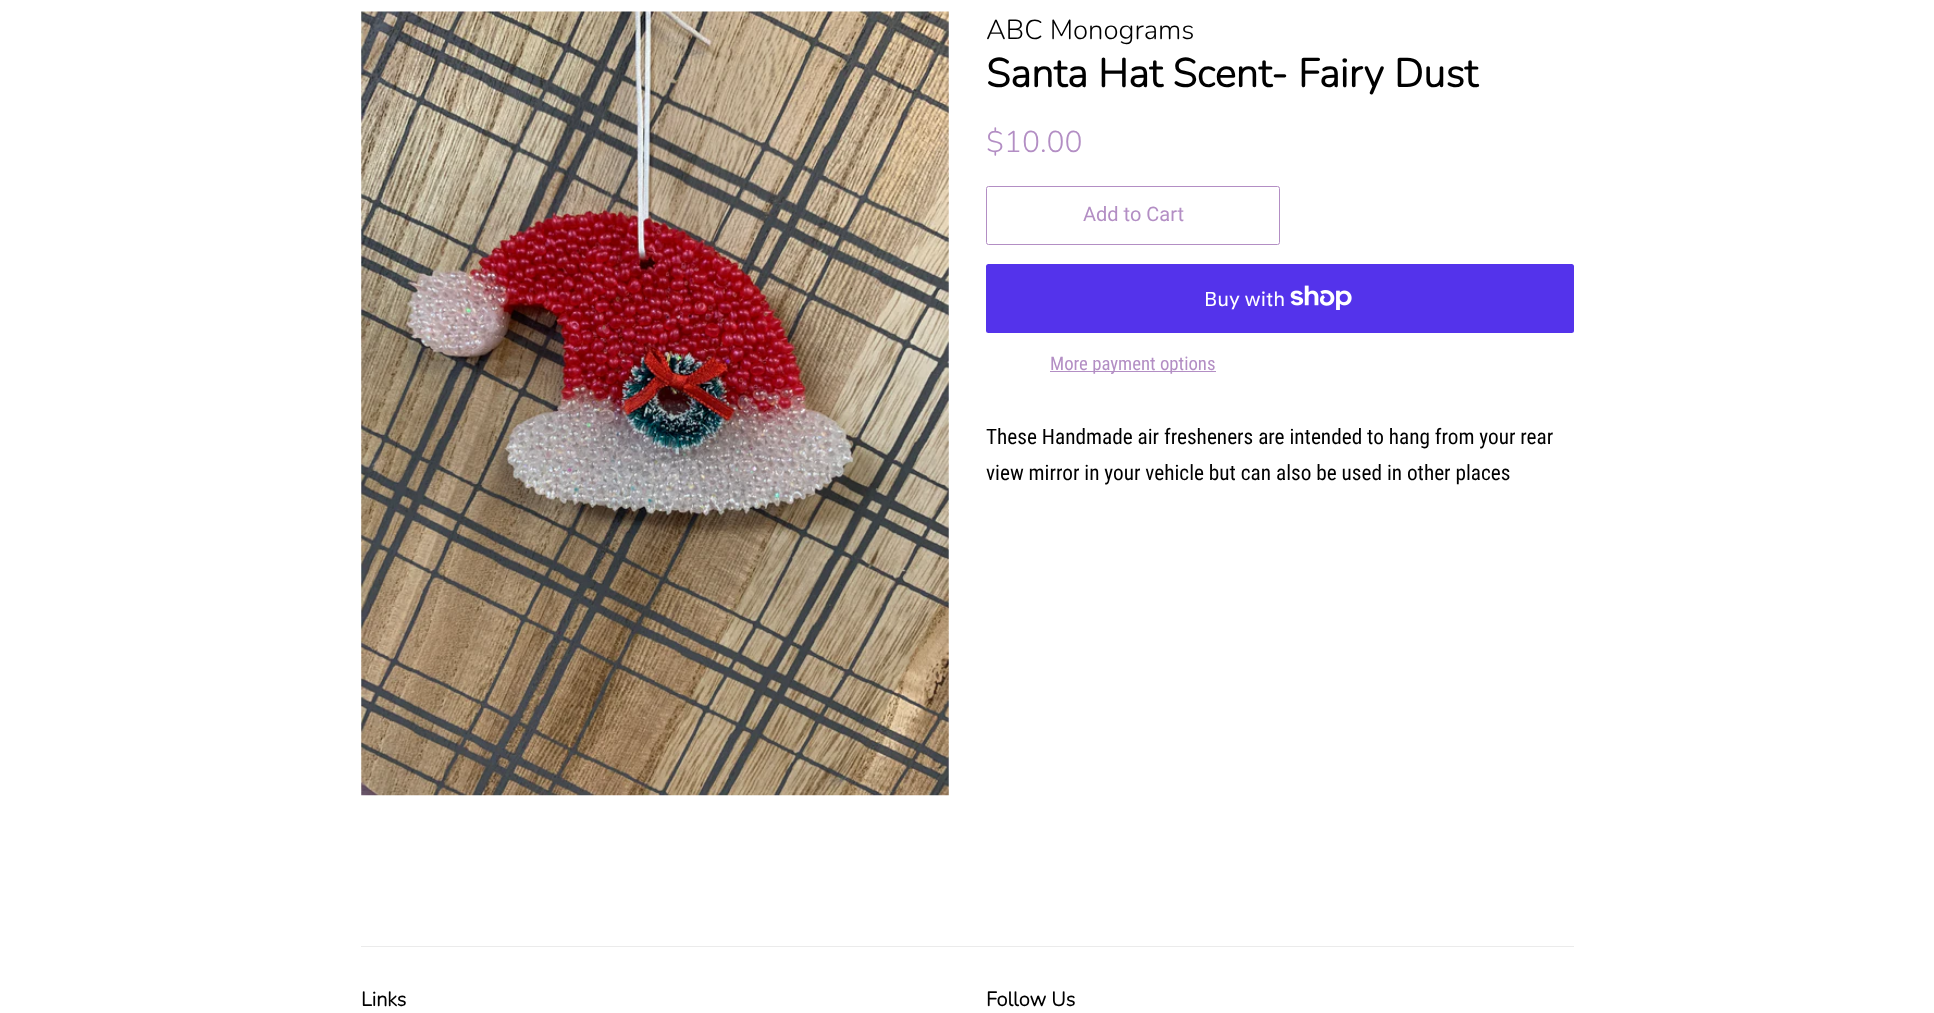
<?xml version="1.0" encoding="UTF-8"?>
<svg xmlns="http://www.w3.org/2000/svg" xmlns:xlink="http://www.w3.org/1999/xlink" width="1934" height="1013">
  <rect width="100%" height="100%" fill="#ffffff" />
  <image x="361" y="11" width="588" height="785" xlink:href="image1.png" />
  <rect x="986.5" y="186.5" width="293" height="58" rx="2" fill="none" stroke="#b38ec4" />
  <rect x="986" y="264" width="588" height="69" rx="2.5" fill="#5433eb" />
  <image x="1290" y="285" width="62" height="25" xlink:href="image2.png" />
  <rect x="1050" y="371" width="166" height="1" fill="#b38ec4" />
  <rect x="361" y="946" width="1213" height="1" fill="#ebebeb" />
  <text x="986" y="39" style="font-family: Nunito; font-size: 27.5px; font-weight: 300; fill: #000000">ABC Monograms</text>
  <text x="986" y="87" style="font-family: Nunito; font-size: 40px; font-weight: bold; fill: #000000">Santa Hat Scent- Fairy Dust</text>
  <text x="986" y="152" style="font-family: Nunito; font-size: 30px; font-weight: 300; fill: #b38ec4">$10.00</text>
  <text x="1083" y="221" style="font-family: Roboto; font-size: 20px; fill: #b38ec4">Add to Cart</text>
  <text x="1204" y="306" style="font-family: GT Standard; font-size: 20px; fill: #ffffff">Buy with</text>
  <text x="1050" y="370" style="font-family: Roboto Condensed; font-size: 18.75px; fill: #b38ec4">More payment options</text>
  <text x="986" y="444" style="font-family: Roboto Condensed; font-size: 21.25px; fill: #000000">These Handmade air fresheners are intended to hang from your rear</text>
  <text x="986" y="480" style="font-family: Roboto Condensed; font-size: 21.25px; fill: #000000">view mirror in your vehicle but can also be used in other places</text>
  <text x="361" y="1006" style="font-family: Nunito; font-size: 20px; font-weight: bold; fill: #000000">Links</text>
  <text x="986" y="1006" style="font-family: Nunito; font-size: 20px; font-weight: bold; fill: #000000">Follow Us</text>
</svg>
